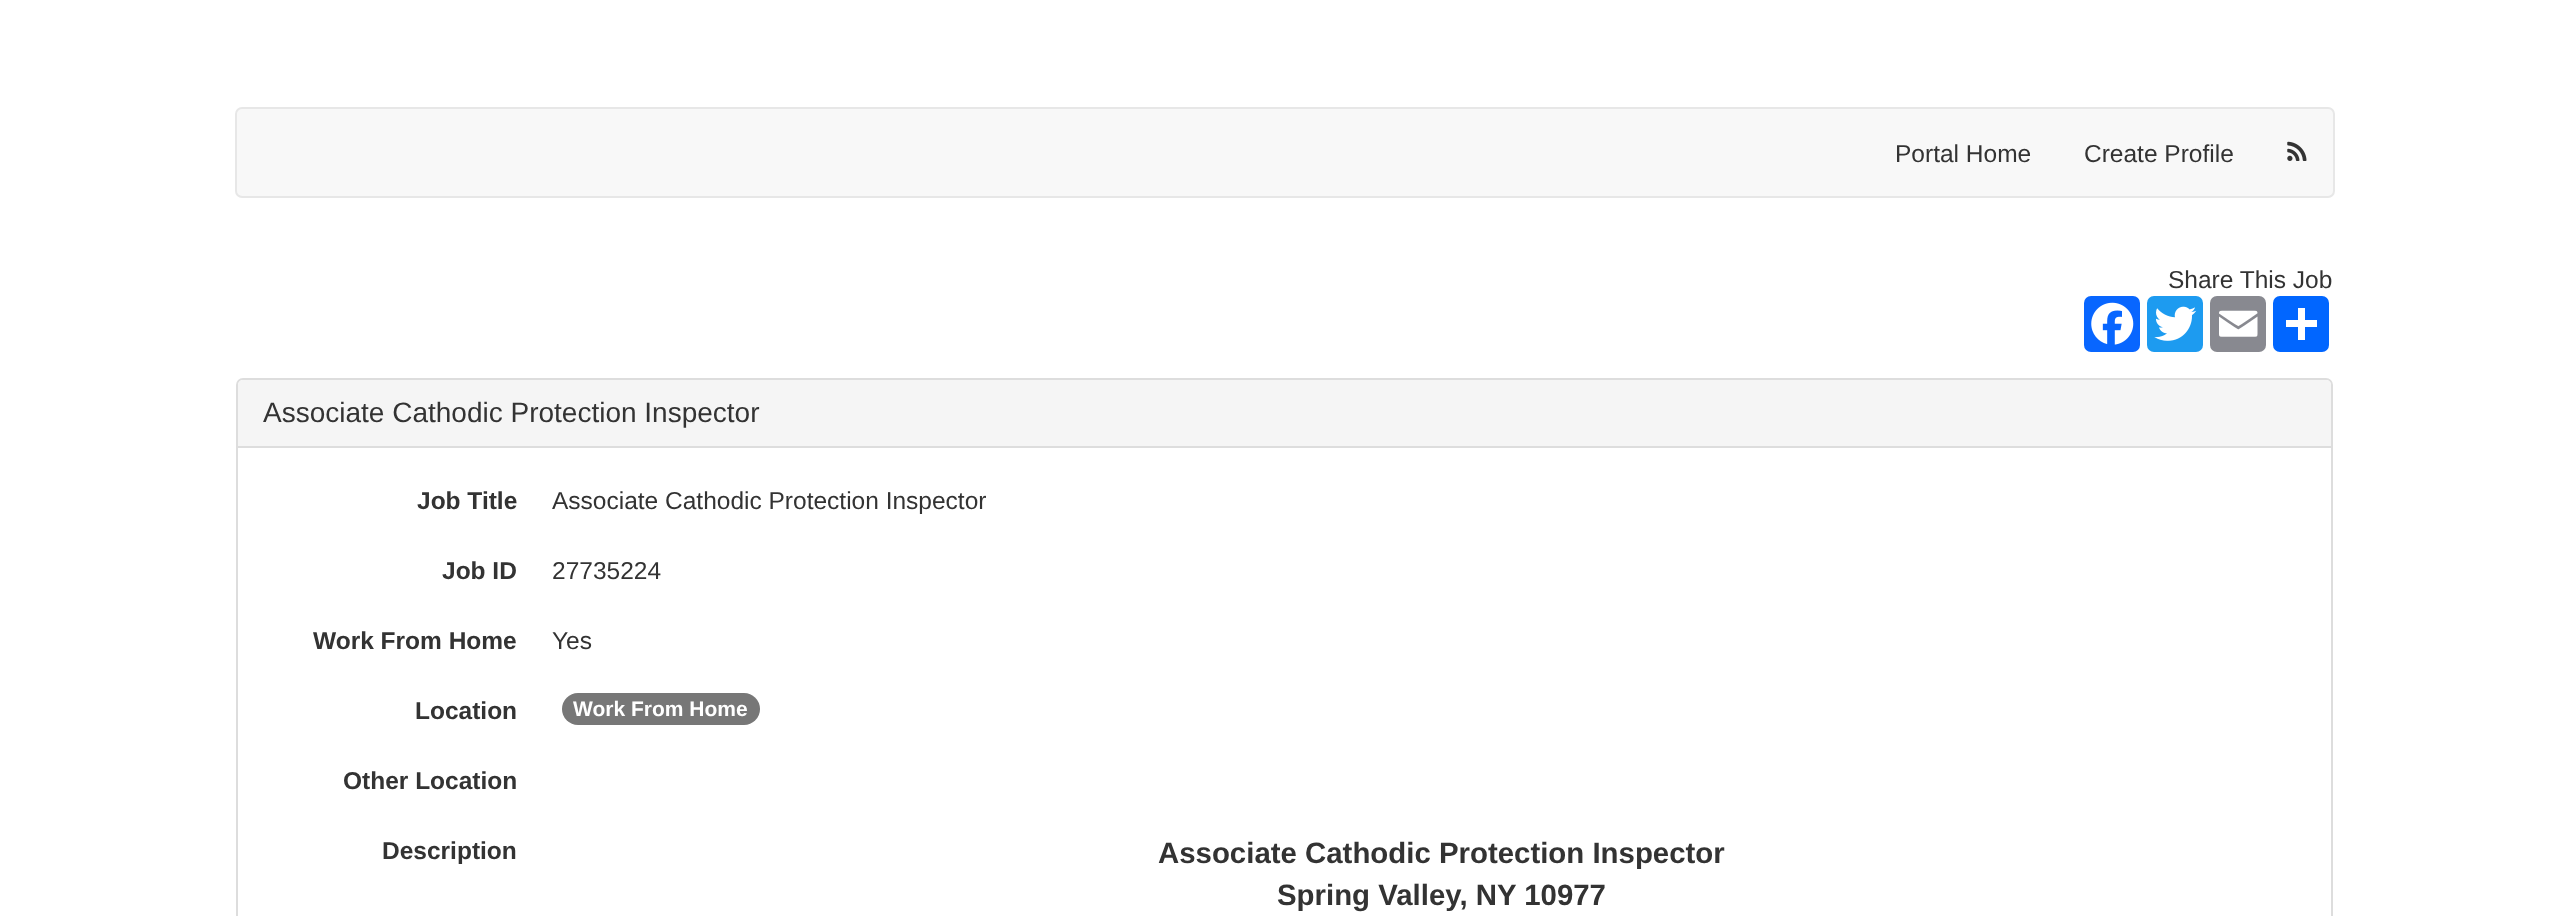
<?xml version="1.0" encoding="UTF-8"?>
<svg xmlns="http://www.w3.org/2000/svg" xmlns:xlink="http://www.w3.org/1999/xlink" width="2566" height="916">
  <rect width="100%" height="100%" fill="#ffffff" />
  <rect x="236" y="108" width="2098" height="89" rx="6" fill="#f8f8f8" stroke="#e7e7e7" stroke-width="2" />
  <image x="2287" y="141" width="20" height="20" xlink:href="image1.png" />
  <rect x="2084" y="296" width="56" height="56" rx="7" fill="#0866ff" />
  <image x="2091" y="302" width="43" height="43" xlink:href="image2.png" />
  <rect x="2147" y="296" width="56" height="56" rx="7" fill="#1d9bf0" />
  <image x="2154" y="306" width="43" height="35" xlink:href="image3.png" />
  <rect x="2210" y="296" width="56" height="56" rx="7" fill="#888990" />
  <image x="2219" y="310" width="39" height="27" xlink:href="image4.png" />
  <rect x="2273" y="296" width="56" height="56" rx="7" fill="#0166ff" />
  <rect x="2298" y="308" width="7" height="32" fill="#ffffff" />
  <rect x="2286" y="320" width="31" height="7" fill="#ffffff" />
  <rect x="237" y="379" width="2095" height="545" rx="6" fill="none" stroke="#dddddd" stroke-width="2" />
  <path d="M 243 380 h 2083 c 3 0 5 2 5 5 v 63 h -2093 v -63 c 0 -3 2 -5 5 -5 z" fill="#f5f5f5" />
  <rect x="238" y="446" width="2093" height="2" fill="#dddddd" />
  <rect x="562" y="693" width="198" height="32" rx="16" fill="#777777" />
  <text x="1895" y="162" style="font-family: Liberation Sans; font-size: 24.5px; fill: #333333">Portal Home</text>
  <text x="2084" y="162" style="font-family: Liberation Sans; font-size: 24.5px; fill: #333333">Create Profile</text>
  <text x="2168" y="288" style="font-family: Liberation Sans; font-size: 24.5px; fill: #333333">Share This Job</text>
  <text x="263" y="422" style="font-family: Liberation Sans; font-size: 28px; fill: #333333">Associate Cathodic Protection Inspector</text>
  <text x="417" y="509" style="font-family: Liberation Sans; font-size: 24.5px; font-weight: bold; fill: #333333">Job Title</text>
  <text x="552" y="509" style="font-family: Liberation Sans; font-size: 24.5px; fill: #333333">Associate Cathodic Protection Inspector</text>
  <text x="442" y="579" style="font-family: Liberation Sans; font-size: 24.5px; font-weight: bold; fill: #333333">Job ID</text>
  <text x="552" y="579" style="font-family: Liberation Sans; font-size: 24.5px; fill: #333333">27735224</text>
  <text x="313" y="649" style="font-family: Liberation Sans; font-size: 24.5px; font-weight: bold; fill: #333333">Work From Home</text>
  <text x="552" y="649" style="font-family: Liberation Sans; font-size: 24.5px; fill: #333333">Yes</text>
  <text x="415" y="719" style="font-family: Liberation Sans; font-size: 24.5px; font-weight: bold; fill: #333333">Location</text>
  <text x="573" y="716" style="font-family: Liberation Sans; font-size: 21px; font-weight: bold; fill: #ffffff">Work From Home</text>
  <text x="343" y="789" style="font-family: Liberation Sans; font-size: 24.5px; font-weight: bold; fill: #333333">Other Location</text>
  <text x="382" y="859" style="font-family: Liberation Sans; font-size: 24.5px; font-weight: bold; fill: #333333">Description</text>
  <text x="1158" y="863" style="font-family: Liberation Sans; font-size: 29.4px; font-weight: bold; fill: #333333">Associate Cathodic Protection Inspector</text>
  <text x="1277" y="905" style="font-family: Liberation Sans; font-size: 29.4px; font-weight: bold; fill: #333333">Spring Valley, NY 10977</text>
</svg>
